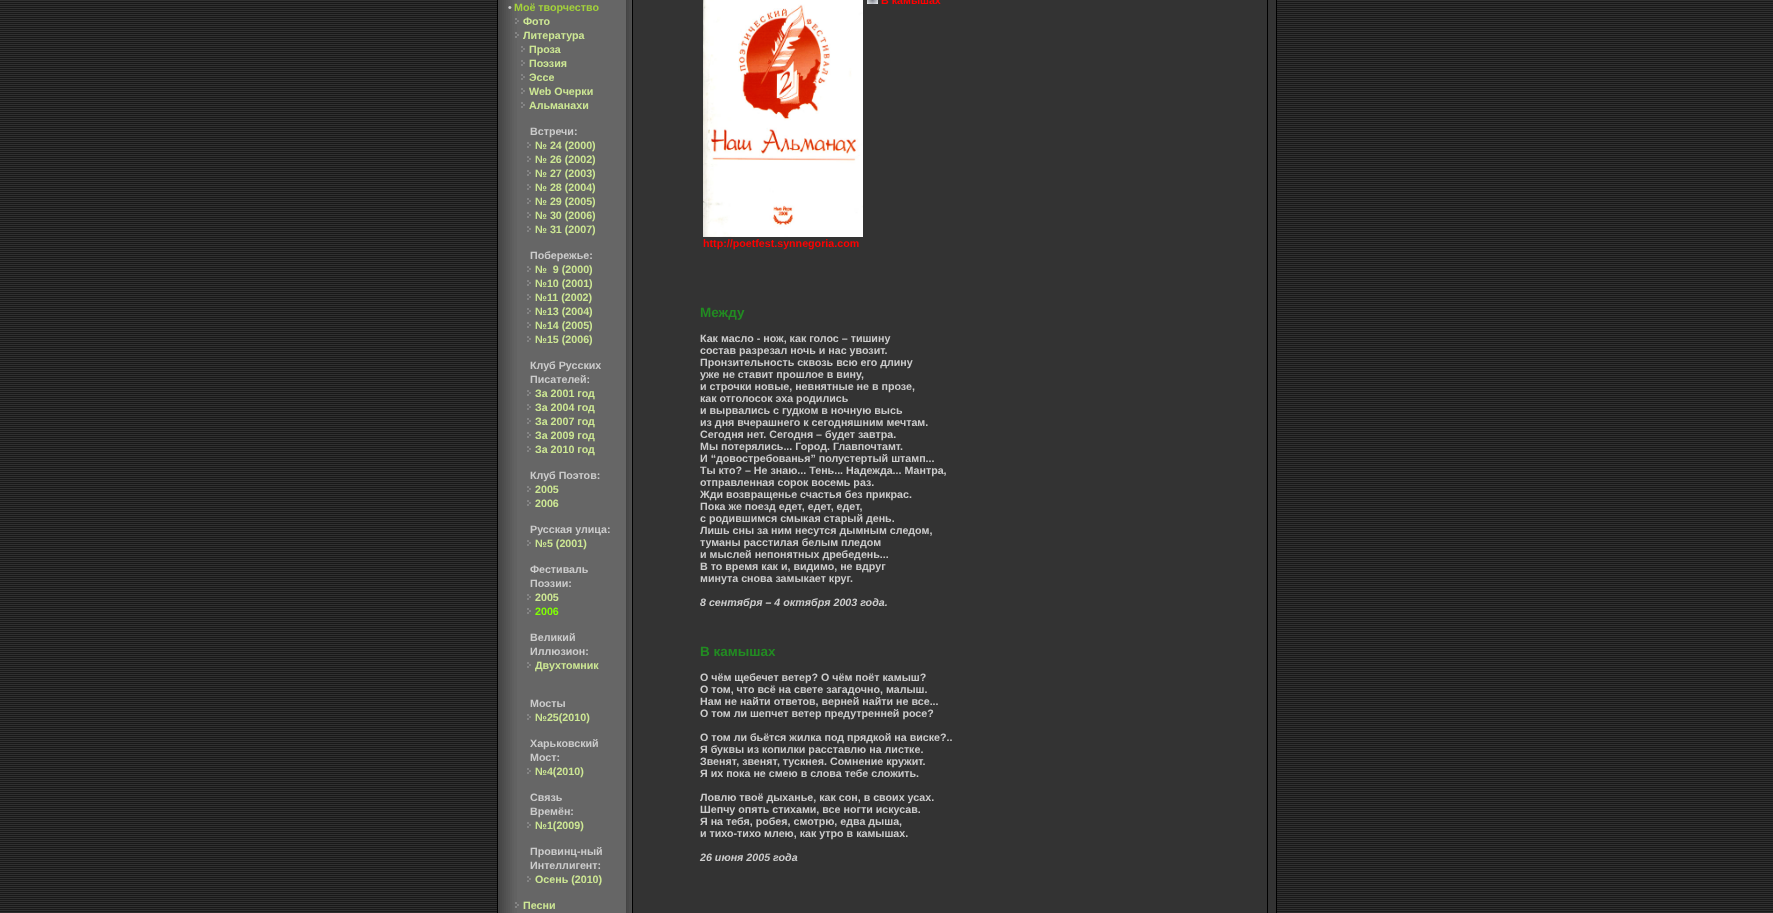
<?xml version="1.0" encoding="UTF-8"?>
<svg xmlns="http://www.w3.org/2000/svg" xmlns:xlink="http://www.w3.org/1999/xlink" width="1773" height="913">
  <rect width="100%" height="100%" fill="#ffffff" />
  <image x="0" y="0" width="1773" height="913" xlink:href="image1.png" />
  <rect x="497" width="780" height="913" fill="#000000" />
  <image x="498" y="0" width="134" height="913" xlink:href="image2.png" />
  <rect x="625" width="1" height="913" fill="#666666" />
  <image x="515" y="18" width="4" height="6" xlink:href="image3.png" />
  <image x="515" y="32" width="4" height="6" xlink:href="image3.png" />
  <image x="521" y="46" width="4" height="6" xlink:href="image4.png" />
  <image x="521" y="60" width="4" height="6" xlink:href="image4.png" />
  <image x="521" y="74" width="4" height="6" xlink:href="image4.png" />
  <image x="521" y="88" width="4" height="6" xlink:href="image4.png" />
  <image x="521" y="102" width="4" height="6" xlink:href="image4.png" />
  <image x="527" y="142" width="4" height="6" xlink:href="image4.png" />
  <image x="527" y="156" width="4" height="6" xlink:href="image4.png" />
  <image x="527" y="170" width="4" height="6" xlink:href="image4.png" />
  <image x="527" y="184" width="4" height="6" xlink:href="image4.png" />
  <image x="527" y="198" width="4" height="6" xlink:href="image4.png" />
  <image x="527" y="212" width="4" height="6" xlink:href="image4.png" />
  <image x="527" y="226" width="4" height="6" xlink:href="image4.png" />
  <image x="527" y="266" width="4" height="6" xlink:href="image4.png" />
  <image x="527" y="280" width="4" height="6" xlink:href="image4.png" />
  <image x="527" y="294" width="4" height="6" xlink:href="image4.png" />
  <image x="527" y="308" width="4" height="6" xlink:href="image4.png" />
  <image x="527" y="322" width="4" height="6" xlink:href="image4.png" />
  <image x="527" y="336" width="4" height="6" xlink:href="image4.png" />
  <image x="527" y="390" width="4" height="6" xlink:href="image4.png" />
  <image x="527" y="404" width="4" height="6" xlink:href="image4.png" />
  <image x="527" y="418" width="4" height="6" xlink:href="image4.png" />
  <image x="527" y="432" width="4" height="6" xlink:href="image4.png" />
  <image x="527" y="446" width="4" height="6" xlink:href="image4.png" />
  <image x="527" y="486" width="4" height="6" xlink:href="image4.png" />
  <image x="527" y="500" width="4" height="6" xlink:href="image4.png" />
  <image x="527" y="540" width="4" height="6" xlink:href="image4.png" />
  <image x="527" y="594" width="4" height="6" xlink:href="image4.png" />
  <image x="527" y="608" width="4" height="6" xlink:href="image4.png" />
  <image x="527" y="662" width="4" height="6" xlink:href="image4.png" />
  <image x="527" y="714" width="4" height="6" xlink:href="image4.png" />
  <image x="527" y="768" width="4" height="6" xlink:href="image4.png" />
  <image x="527" y="822" width="4" height="6" xlink:href="image4.png" />
  <image x="527" y="876" width="4" height="6" xlink:href="image4.png" />
  <image x="515" y="902" width="4" height="6" xlink:href="image3.png" />
  <rect x="633" width="634" height="913" fill="#333333" />
  <image x="867" y="0" width="11" height="4" xlink:href="image5.png" />
  <image x="703" y="0" width="160" height="237" xlink:href="image6.png" />
  <rect x="1268" width="8" height="913" fill="#333333" />
  <text x="508" y="11" style="font-family: Liberation Sans; font-size: 10.7px; font-weight: bold; fill: #cccccc">•</text>
  <text x="514" y="11" style="font-family: Liberation Sans; font-size: 10.7px; font-weight: bold; fill: #a3d13b">Моё творчество</text>
  <text x="523" y="25" style="font-family: Liberation Sans; font-size: 10.7px; font-weight: bold; fill: #cde794">Фото</text>
  <text x="523" y="39" style="font-family: Liberation Sans; font-size: 10.7px; font-weight: bold; fill: #cde794">Литература</text>
  <text x="529" y="53" style="font-family: Liberation Sans; font-size: 10.7px; font-weight: bold; fill: #cde794">Проза</text>
  <text x="529" y="67" style="font-family: Liberation Sans; font-size: 10.7px; font-weight: bold; fill: #cde794">Поэзия</text>
  <text x="529" y="81" style="font-family: Liberation Sans; font-size: 10.7px; font-weight: bold; fill: #cde794">Эссе</text>
  <text x="529" y="95" style="font-family: Liberation Sans; font-size: 10.7px; font-weight: bold; fill: #cde794">Web Очерки</text>
  <text x="529" y="109" style="font-family: Liberation Sans; font-size: 10.7px; font-weight: bold; fill: #cde794">Альманахи</text>
  <text x="530" y="135" style="font-family: Liberation Sans; font-size: 10.7px; font-weight: bold; fill: #cccccc">Встречи:</text>
  <text x="535" y="149" style="font-family: Liberation Sans; font-size: 10.7px; font-weight: bold; fill: #cde794">№ 24 (2000)</text>
  <text x="535" y="163" style="font-family: Liberation Sans; font-size: 10.7px; font-weight: bold; fill: #cde794">№ 26 (2002)</text>
  <text x="535" y="177" style="font-family: Liberation Sans; font-size: 10.7px; font-weight: bold; fill: #cde794">№ 27 (2003)</text>
  <text x="535" y="191" style="font-family: Liberation Sans; font-size: 10.7px; font-weight: bold; fill: #cde794">№ 28 (2004)</text>
  <text x="535" y="205" style="font-family: Liberation Sans; font-size: 10.7px; font-weight: bold; fill: #cde794">№ 29 (2005)</text>
  <text x="535" y="219" style="font-family: Liberation Sans; font-size: 10.7px; font-weight: bold; fill: #cde794">№ 30 (2006)</text>
  <text x="535" y="233" style="font-family: Liberation Sans; font-size: 10.7px; font-weight: bold; fill: #cde794">№ 31 (2007)</text>
  <text x="530" y="259" style="font-family: Liberation Sans; font-size: 10.7px; font-weight: bold; fill: #cccccc">Побережье:</text>
  <text x="535" y="273" style="font-family: Liberation Sans; font-size: 10.7px; font-weight: bold; fill: #cde794" xml:space="preserve">№  9 (2000)</text>
  <text x="535" y="287" style="font-family: Liberation Sans; font-size: 10.7px; font-weight: bold; fill: #cde794">№10 (2001)</text>
  <text x="535" y="301" style="font-family: Liberation Sans; font-size: 10.7px; font-weight: bold; fill: #cde794">№11 (2002)</text>
  <text x="535" y="315" style="font-family: Liberation Sans; font-size: 10.7px; font-weight: bold; fill: #cde794">№13 (2004)</text>
  <text x="535" y="329" style="font-family: Liberation Sans; font-size: 10.7px; font-weight: bold; fill: #cde794">№14 (2005)</text>
  <text x="535" y="343" style="font-family: Liberation Sans; font-size: 10.7px; font-weight: bold; fill: #cde794">№15 (2006)</text>
  <text x="530" y="369" style="font-family: Liberation Sans; font-size: 10.7px; font-weight: bold; fill: #cccccc">Клуб Русских</text>
  <text x="530" y="383" style="font-family: Liberation Sans; font-size: 10.7px; font-weight: bold; fill: #cccccc">Писателей:</text>
  <text x="535" y="397" style="font-family: Liberation Sans; font-size: 10.7px; font-weight: bold; fill: #cde794">За 2001 год</text>
  <text x="535" y="411" style="font-family: Liberation Sans; font-size: 10.7px; font-weight: bold; fill: #cde794">За 2004 год</text>
  <text x="535" y="425" style="font-family: Liberation Sans; font-size: 10.7px; font-weight: bold; fill: #cde794">За 2007 год</text>
  <text x="535" y="439" style="font-family: Liberation Sans; font-size: 10.7px; font-weight: bold; fill: #cde794">За 2009 год</text>
  <text x="535" y="453" style="font-family: Liberation Sans; font-size: 10.7px; font-weight: bold; fill: #cde794">За 2010 год</text>
  <text x="530" y="479" style="font-family: Liberation Sans; font-size: 10.7px; font-weight: bold; fill: #cccccc">Клуб Поэтов:</text>
  <text x="535" y="493" style="font-family: Liberation Sans; font-size: 10.7px; font-weight: bold; fill: #cde794">2005</text>
  <text x="535" y="507" style="font-family: Liberation Sans; font-size: 10.7px; font-weight: bold; fill: #cde794">2006</text>
  <text x="530" y="533" style="font-family: Liberation Sans; font-size: 10.7px; font-weight: bold; fill: #cccccc">Русская улица:</text>
  <text x="535" y="547" style="font-family: Liberation Sans; font-size: 10.7px; font-weight: bold; fill: #cde794">№5 (2001)</text>
  <text x="530" y="573" style="font-family: Liberation Sans; font-size: 10.7px; font-weight: bold; fill: #cccccc">Фестиваль</text>
  <text x="530" y="587" style="font-family: Liberation Sans; font-size: 10.7px; font-weight: bold; fill: #cccccc">Поэзии:</text>
  <text x="535" y="601" style="font-family: Liberation Sans; font-size: 10.7px; font-weight: bold; fill: #cde794">2005</text>
  <text x="535" y="615" style="font-family: Liberation Sans; font-size: 10.7px; font-weight: bold; fill: #80ff04">2006</text>
  <text x="530" y="641" style="font-family: Liberation Sans; font-size: 10.7px; font-weight: bold; fill: #cccccc">Великий</text>
  <text x="530" y="655" style="font-family: Liberation Sans; font-size: 10.7px; font-weight: bold; fill: #cccccc">Иллюзион:</text>
  <text x="535" y="669" style="font-family: Liberation Sans; font-size: 10.7px; font-weight: bold; fill: #cde794">Двухтомник</text>
  <text x="530" y="707" style="font-family: Liberation Sans; font-size: 10.7px; font-weight: bold; fill: #cccccc">Мосты</text>
  <text x="535" y="721" style="font-family: Liberation Sans; font-size: 10.7px; font-weight: bold; fill: #cde794">№25(2010)</text>
  <text x="530" y="747" style="font-family: Liberation Sans; font-size: 10.7px; font-weight: bold; fill: #cccccc">Харьковский</text>
  <text x="530" y="761" style="font-family: Liberation Sans; font-size: 10.7px; font-weight: bold; fill: #cccccc">Мост:</text>
  <text x="535" y="775" style="font-family: Liberation Sans; font-size: 10.7px; font-weight: bold; fill: #cde794">№4(2010)</text>
  <text x="530" y="801" style="font-family: Liberation Sans; font-size: 10.7px; font-weight: bold; fill: #cccccc">Связь</text>
  <text x="530" y="815" style="font-family: Liberation Sans; font-size: 10.7px; font-weight: bold; fill: #cccccc">Времён:</text>
  <text x="535" y="829" style="font-family: Liberation Sans; font-size: 10.7px; font-weight: bold; fill: #cde794">№1(2009)</text>
  <text x="530" y="855" style="font-family: Liberation Sans; font-size: 10.7px; font-weight: bold; fill: #cccccc">Провинц-ный</text>
  <text x="530" y="869" style="font-family: Liberation Sans; font-size: 10.7px; font-weight: bold; fill: #cccccc">Интеллигент:</text>
  <text x="535" y="883" style="font-family: Liberation Sans; font-size: 10.7px; font-weight: bold; fill: #cde794">Осень (2010)</text>
  <text x="523" y="909" style="font-family: Liberation Sans; font-size: 10.7px; font-weight: bold; fill: #cde794">Песни</text>
  <text x="881" y="4" style="font-family: Liberation Sans; font-size: 10.7px; font-weight: bold; fill: #ff0000">В камышах</text>
  <text x="703" y="247" style="font-family: Liberation Sans; font-size: 10.7px; font-weight: bold; fill: #ff0000">http://poetfest.synnegoria.com</text>
  <text x="700" y="317" style="font-family: Liberation Sans; font-size: 13.5px; font-weight: bold; fill: #228b22">Между</text>
  <text x="700" y="342" style="font-family: Liberation Sans; font-size: 10.7px; font-weight: bold; fill: #cccccc">Как масло - нож, как голос – тишину</text>
  <text x="700" y="354" style="font-family: Liberation Sans; font-size: 10.7px; font-weight: bold; fill: #cccccc">состав разрезал ночь и нас увозит.</text>
  <text x="700" y="366" style="font-family: Liberation Sans; font-size: 10.7px; font-weight: bold; fill: #cccccc">Пронзительность сквозь всю его длину</text>
  <text x="700" y="378" style="font-family: Liberation Sans; font-size: 10.7px; font-weight: bold; fill: #cccccc">уже не ставит прошлое в вину,</text>
  <text x="700" y="390" style="font-family: Liberation Sans; font-size: 10.7px; font-weight: bold; fill: #cccccc">и строчки новые, невнятные не в прозе,</text>
  <text x="700" y="402" style="font-family: Liberation Sans; font-size: 10.7px; font-weight: bold; fill: #cccccc">как отголосок эха родились</text>
  <text x="700" y="414" style="font-family: Liberation Sans; font-size: 10.7px; font-weight: bold; fill: #cccccc">и вырвались с гудком в ночную высь</text>
  <text x="700" y="426" style="font-family: Liberation Sans; font-size: 10.7px; font-weight: bold; fill: #cccccc">из дня вчерашнего к сегодняшним мечтам.</text>
  <text x="700" y="438" style="font-family: Liberation Sans; font-size: 10.7px; font-weight: bold; fill: #cccccc">Сегодня нет. Сегодня – будет завтра.</text>
  <text x="700" y="450" style="font-family: Liberation Sans; font-size: 10.7px; font-weight: bold; fill: #cccccc">Мы потерялись... Город. Главпочтамт.</text>
  <text x="700" y="462" style="font-family: Liberation Sans; font-size: 10.7px; font-weight: bold; fill: #cccccc">И “довостребованья” полустертый штамп...</text>
  <text x="700" y="474" style="font-family: Liberation Sans; font-size: 10.7px; font-weight: bold; fill: #cccccc">Ты кто? – Не знаю... Тень... Надежда... Мантра,</text>
  <text x="700" y="486" style="font-family: Liberation Sans; font-size: 10.7px; font-weight: bold; fill: #cccccc">отправленная сорок восемь раз.</text>
  <text x="700" y="498" style="font-family: Liberation Sans; font-size: 10.7px; font-weight: bold; fill: #cccccc">Жди возвращенье счастья без прикрас.</text>
  <text x="700" y="510" style="font-family: Liberation Sans; font-size: 10.7px; font-weight: bold; fill: #cccccc">Пока же поезд едет, едет, едет,</text>
  <text x="700" y="522" style="font-family: Liberation Sans; font-size: 10.7px; font-weight: bold; fill: #cccccc">с родившимся смыкая старый день.</text>
  <text x="700" y="534" style="font-family: Liberation Sans; font-size: 10.7px; font-weight: bold; fill: #cccccc">Лишь сны за ним несутся дымным следом,</text>
  <text x="700" y="546" style="font-family: Liberation Sans; font-size: 10.7px; font-weight: bold; fill: #cccccc">туманы расстилая белым пледом</text>
  <text x="700" y="558" style="font-family: Liberation Sans; font-size: 10.7px; font-weight: bold; fill: #cccccc">и мыслей непонятных дребедень...</text>
  <text x="700" y="570" style="font-family: Liberation Sans; font-size: 10.7px; font-weight: bold; fill: #cccccc">В то время как и, видимо, не вдруг</text>
  <text x="700" y="582" style="font-family: Liberation Sans; font-size: 10.7px; font-weight: bold; fill: #cccccc">минута снова замыкает круг.</text>
  <text x="700" y="606" style="font-family: Liberation Sans; font-size: 10.7px; font-weight: bold; font-style: italic; fill: #cccccc">8 сентября – 4 октября 2003 года.</text>
  <text x="700" y="656" style="font-family: Liberation Sans; font-size: 13.5px; font-weight: bold; fill: #228b22">В камышах</text>
  <text x="700" y="681" style="font-family: Liberation Sans; font-size: 10.7px; font-weight: bold; fill: #cccccc">О чём щебечет ветер? О чём поёт камыш?</text>
  <text x="700" y="693" style="font-family: Liberation Sans; font-size: 10.7px; font-weight: bold; fill: #cccccc">О том, что всё на свете загадочно, малыш.</text>
  <text x="700" y="705" style="font-family: Liberation Sans; font-size: 10.7px; font-weight: bold; fill: #cccccc">Нам не найти ответов, верней найти не все...</text>
  <text x="700" y="717" style="font-family: Liberation Sans; font-size: 10.7px; font-weight: bold; fill: #cccccc">О том ли шепчет ветер предутренней росе?</text>
  <text x="700" y="741" style="font-family: Liberation Sans; font-size: 10.7px; font-weight: bold; fill: #cccccc">О том ли бьётся жилка под прядкой на виске?..</text>
  <text x="700" y="753" style="font-family: Liberation Sans; font-size: 10.7px; font-weight: bold; fill: #cccccc">Я буквы из копилки расставлю на листке.</text>
  <text x="700" y="765" style="font-family: Liberation Sans; font-size: 10.7px; font-weight: bold; fill: #cccccc">Звенят, звенят, тускнея. Сомнение кружит.</text>
  <text x="700" y="777" style="font-family: Liberation Sans; font-size: 10.7px; font-weight: bold; fill: #cccccc">Я их пока не смею в слова тебе сложить.</text>
  <text x="700" y="801" style="font-family: Liberation Sans; font-size: 10.7px; font-weight: bold; fill: #cccccc">Ловлю твоё дыханье, как сон, в своих усах.</text>
  <text x="700" y="813" style="font-family: Liberation Sans; font-size: 10.7px; font-weight: bold; fill: #cccccc">Шепчу опять стихами, все ногти искусав.</text>
  <text x="700" y="825" style="font-family: Liberation Sans; font-size: 10.7px; font-weight: bold; fill: #cccccc">Я на тебя, робея, смотрю, едва дыша,</text>
  <text x="700" y="837" style="font-family: Liberation Sans; font-size: 10.7px; font-weight: bold; fill: #cccccc">и тихо-тихо млею, как утро в камышах.</text>
  <text x="700" y="861" style="font-family: Liberation Sans; font-size: 10.7px; font-weight: bold; font-style: italic; fill: #cccccc">26 июня 2005 года</text>
</svg>
